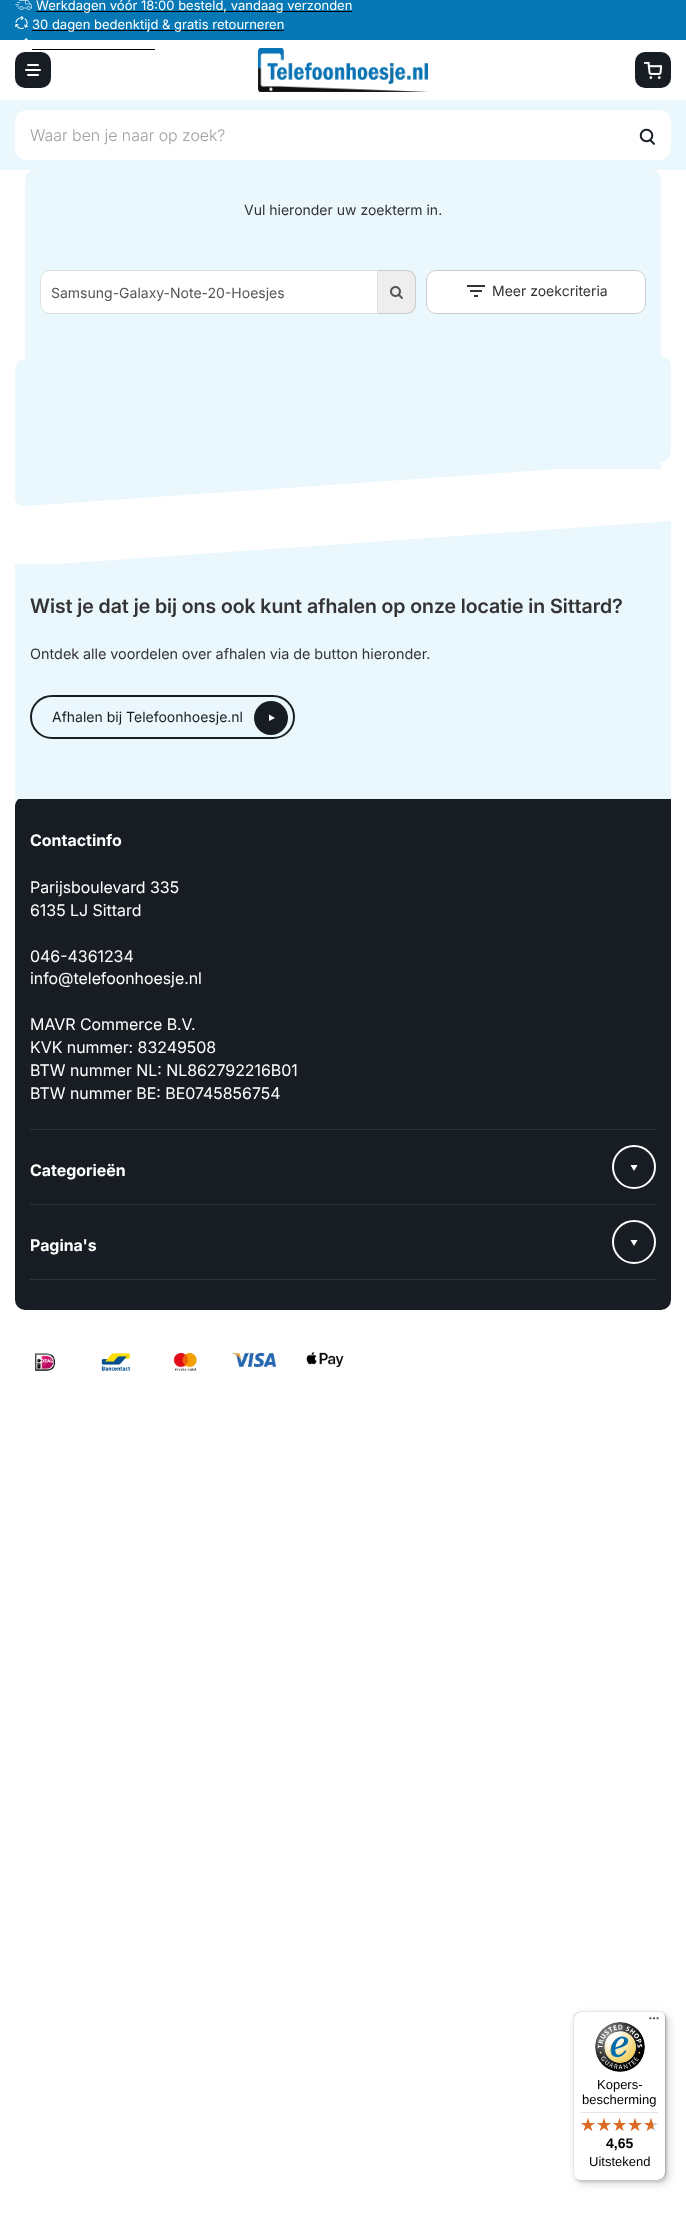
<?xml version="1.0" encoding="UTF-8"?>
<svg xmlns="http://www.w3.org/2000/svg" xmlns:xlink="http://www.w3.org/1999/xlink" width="686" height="2235">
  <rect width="100%" height="100%" fill="#ffffff" />
  <rect width="686" height="40" fill="#0578b5" />
  <image x="15" y="0" width="17" height="10" xlink:href="image1.png" />
  <rect x="36" y="11" width="316" height="1" fill="#000000" />
  <image x="15" y="16" width="13" height="13" xlink:href="image2.png" />
  <rect x="32" y="30" width="252" height="1" fill="#000000" />
  <image x="24" y="38" width="4" height="2" xlink:href="image3.png" />
  <rect x="32" y="49" width="123" height="1" fill="#000000" />
  <rect x="15" y="52" width="36" height="36" rx="10" fill="#181d24" />
  <image x="25" y="64" width="16" height="12" xlink:href="image4.png" />
  <image x="258" y="48" width="170" height="44" xlink:href="image5.png" />
  <rect x="635" y="52" width="36" height="36" rx="10" fill="#181d24" />
  <image x="644" y="62" width="18" height="17" xlink:href="image6.png" />
  <rect y="100" width="686" height="70" fill="#eaf7fd" />
  <rect x="15" y="110" width="656" height="50" rx="12" fill="#ffffff" />
  <image x="639" y="128" width="16" height="17" xlink:href="image7.png" />
  <path d="M 25 401 l 636 -44 c 6 -1 10 4 10 9 v 85 c 0 6 -4 10 -10 11 l -636 44 c -6 1 -10 -4 -10 -9 v -85 c 0 -6 4 -10 10 -11 z" fill="#eaf7fd" />
  <rect x="15" y="359" width="656" height="60" rx="10" fill="#eaf7fd" />
  <path d="M 35 170 h 616 c 5.5 0 10 4.5 10 10 v 289 h -636 v -289 c 0 -5.5 4.5 -10 10 -10 z" fill="#eaf7fd" />
  <path d="M 50 270.5 h 327.5 v 43 h -327.5 c -5 0 -9.5 -4.5 -9.5 -9.5 v -24 c 0 -5 4.5 -9.5 9.5 -9.5 z" fill="#ffffff" stroke="#dfdfdf" />
  <path d="M 378 270 h 28 c 5.5 0 10 4.5 10 10 v 24 c 0 5.5 -4.5 10 -10 10 h -28 z" fill="#eeeeee" />
  <path d="M 378 270 h 28 c 6 0 10 4 10 10 v 24 c 0 6 -4 10 -10 10 h -28 z m 0 1 h 28 c 5 0 9 4 9 9 v 24 c 0 5 -4 9 -9 9 h -28 z" fill="#cccccc" fill-rule="evenodd" />
  <image x="390" y="286" width="13" height="13" xlink:href="image8.png" />
  <rect x="426.5" y="270.5" width="219" height="43" rx="9.5" fill="#ffffff" stroke="#cccccc" />
  <image x="467" y="285" width="18" height="12" xlink:href="image9.png" />
  <path d="M 15 567 l 656 -46 v 255 l -656 46 z" fill="#eaf7fd" />
  <path d="M 25 796 l 636 -44 c 6 -1 10 4 10 9 v 90 l -656 46 v -90 c 0 -6 4 -10 10 -11 z" fill="#181d24" />
  <rect x="15" y="564" width="656" height="235" fill="#eaf7fd" />
  <circle cx="271" cy="718" r="17" fill="#181d24" />
  <path d="M 275 718 l -6 3 v -6.5 z" fill="#ffffff" />
  <rect x="31" y="696" width="263" height="42" rx="21" fill="none" stroke="#181d24" stroke-width="2" />
  <rect x="15" y="799" width="656" height="511" rx="10" fill="#181d24" />
  <rect x="30" y="1129" width="626" height="1" fill="#2f343a" />
  <rect x="30" y="1204" width="626" height="1" fill="#2f343a" />
  <circle cx="634" cy="1167" r="21" fill="none" stroke="#ffffff" stroke-width="2" />
  <path d="M 634 1171 l -3.5 -6 h 7 z" fill="#ffffff" />
  <rect x="30" y="1279" width="626" height="1" fill="#2f343a" />
  <circle cx="634" cy="1242" r="21" fill="none" stroke="#ffffff" stroke-width="2" />
  <path d="M 634 1246 l -3.5 -6 h 7 z" fill="#ffffff" />
  <image x="35" y="1353" width="21" height="18" xlink:href="image10.png" />
  <image x="101" y="1353" width="30" height="18" xlink:href="image11.png" />
  <image x="173" y="1352" width="24" height="19" xlink:href="image12.png" />
  <image x="232" y="1352" width="44" height="16" xlink:href="image13.png" />
  <image x="306" y="1351" width="38" height="17" xlink:href="image14.png" />
  <rect x="576" y="2014" width="93" height="170" rx="8" fill="#000000" fill-opacity="0.15" filter="blur(4px)" />
  <rect x="574" y="2012" width="93" height="170" rx="8" fill="#000000" fill-opacity="0.15" filter="blur(1px)" />
  <rect x="573" y="2011" width="93" height="170" rx="8" fill="#ffffff" />
  <path d="M 582 2012 h 77 c 2 0 4 1 6 3 c -2 -2 -4 -4 -7 -4 h -77 c -4 0 -8 4 -8 8 v 154 c 0 3 2 5 4 7 c -2 -2 -3 -4 -3 -6 v -154 c 0 -4 4 -8 8 -8 z" fill="#e5e5e5" />
  <path d="M 574 2177 c 2 2 4 4 7 4 h 77 c 4 0 8 -4 8 -8 v -154 c 0 -3 -2 -5 -4 -7 c 2 2 3 4 3 6 v 154 c 0 4 -4 8 -8 8 h -77 c -2 0 -4 -1 -6 -3 z" fill="#cccccc" />
  <path d="M 575 2178 c 1 2 4 3 6 3 h 77 c 4 0 8 -4 8 -8 v -154 c 0 -2 -1 -5 -3 -6 c 1 1 2 3 2 5 v 154 c 0 5 -3 8 -8 8 h -77 c -2 0 -4 -1 -5 -2 z" fill="#323232" fill-opacity="0.2" />
  <image x="649" y="2017" width="10" height="3" xlink:href="image15.png" />
  <path d="M 575 2178 c 1 2 4 3 6 3 h 77 c 4 0 8 -4 8 -8 v -1 c 0 5 -4 8 -8 8 h -78 c -2 0 -4 -1 -5 -2 z" fill="#ffffff" fill-opacity="0.3" />
  <image x="595" y="2022" width="50" height="50" xlink:href="image16.png" />
  <rect x="581" y="2112" width="77" height="1" fill="#e5e5e5" />
  <image x="581" y="2118" width="14" height="13" xlink:href="image17.png" />
  <image x="597" y="2118" width="14" height="13" xlink:href="image17.png" />
  <image x="613" y="2118" width="13" height="13" xlink:href="image18.png" />
  <image x="628" y="2118" width="14" height="13" xlink:href="image17.png" />
  <image x="644" y="2118" width="14" height="13" xlink:href="image17.png" />
  <image x="581" y="2118" width="14" height="13" xlink:href="image19.png" />
  <image x="597" y="2118" width="14" height="13" xlink:href="image19.png" />
  <image x="613" y="2118" width="13" height="13" xlink:href="image20.png" />
  <image x="628" y="2118" width="14" height="13" xlink:href="image19.png" />
  <image x="644" y="2118" width="9" height="13" xlink:href="image21.png" />
  <text x="36" y="10" style="font-family: Inter; font-size: 13px; fill: #ffffff">Werkdagen vóór 18:00 besteld, vandaag verzonden</text>
  <text x="32" y="29" style="font-family: Inter; font-size: 13px; fill: #ffffff">30 dagen bedenktijd &amp; gratis retourneren</text>
  <text x="30" y="141" style="font-family: Inter; font-size: 16px; font-weight: 300; fill: #a1a1a1">Waar ben je naar op zoek?</text>
  <text x="244" y="215" style="font-family: Inter; font-size: 14px; fill: #333333">Vul hieronder uw zoekterm in.</text>
  <text x="51" y="298" style="font-family: Inter; font-size: 14px; fill: #555555">Samsung-Galaxy-Note-20-Hoesjes</text>
  <text x="492" y="296" style="font-family: Inter; font-size: 14px; fill: #333333">Meer zoekcriteria</text>
  <text x="30" y="613" style="font-family: Inter; font-size: 19.8px; font-weight: 600; fill: #333333">Wist je dat je bij ons ook kunt afhalen op onze locatie in Sittard?</text>
  <text x="30" y="659" word-spacing="-0.25" style="font-family: Inter; font-size: 14.4px; fill: #333333">Ontdek alle voordelen over afhalen via de button hieronder.</text>
  <text x="52" y="722" style="font-family: Inter; font-size: 14px; fill: #181d24">Afhalen bij Telefoonhoesje.nl</text>
  <text x="30" y="846" style="font-family: Inter; font-size: 16px; font-weight: bold; fill: #ffffff">Contactinfo</text>
  <text x="30" y="893" style="font-family: 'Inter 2'; font-size: 16px; fill: #ffffff">Parijsboulevard 335</text>
  <text x="30" y="916" style="font-family: 'Inter 2'; font-size: 16px; fill: #ffffff">6135 LJ Sittard</text>
  <text x="30" y="962" style="font-family: 'Inter 2'; font-size: 16px; fill: #ffffff">046-4361234</text>
  <text x="30" y="984" style="font-family: 'Inter 2'; font-size: 16px; fill: #ffffff">info@telefoonhoesje.nl</text>
  <text x="30" y="1030" style="font-family: 'Inter 2'; font-size: 16px; fill: #ffffff">MAVR Commerce B.V.</text>
  <text x="30" y="1053" style="font-family: 'Inter 2'; font-size: 16px; fill: #ffffff">KVK nummer: 83249508</text>
  <text x="30" y="1076" style="font-family: 'Inter 2'; font-size: 16px; fill: #ffffff">BTW nummer NL: NL862792216B01</text>
  <text x="30" y="1099" style="font-family: 'Inter 2'; font-size: 16px; fill: #ffffff">BTW nummer BE: BE0745856754</text>
  <text x="30" y="1176" style="font-family: Inter; font-size: 16px; font-weight: bold; fill: #ffffff">Categorieën</text>
  <text x="30" y="1251" style="font-family: Inter; font-size: 16px; font-weight: bold; fill: #ffffff">Pagina's</text>
  <text x="597" y="2089" style="font-family: Liberation Sans; font-size: 13px; fill: #000000">Kopers-</text>
  <text x="582" y="2104" style="font-family: Liberation Sans; font-size: 13px; fill: #000000">bescherming</text>
  <text x="606" y="2148" style="font-family: Liberation Sans; font-size: 14px; font-weight: bold; fill: #000000">4,65</text>
  <text x="589" y="2166" style="font-family: Liberation Sans; font-size: 13px; fill: #000000">Uitstekend</text>
</svg>
